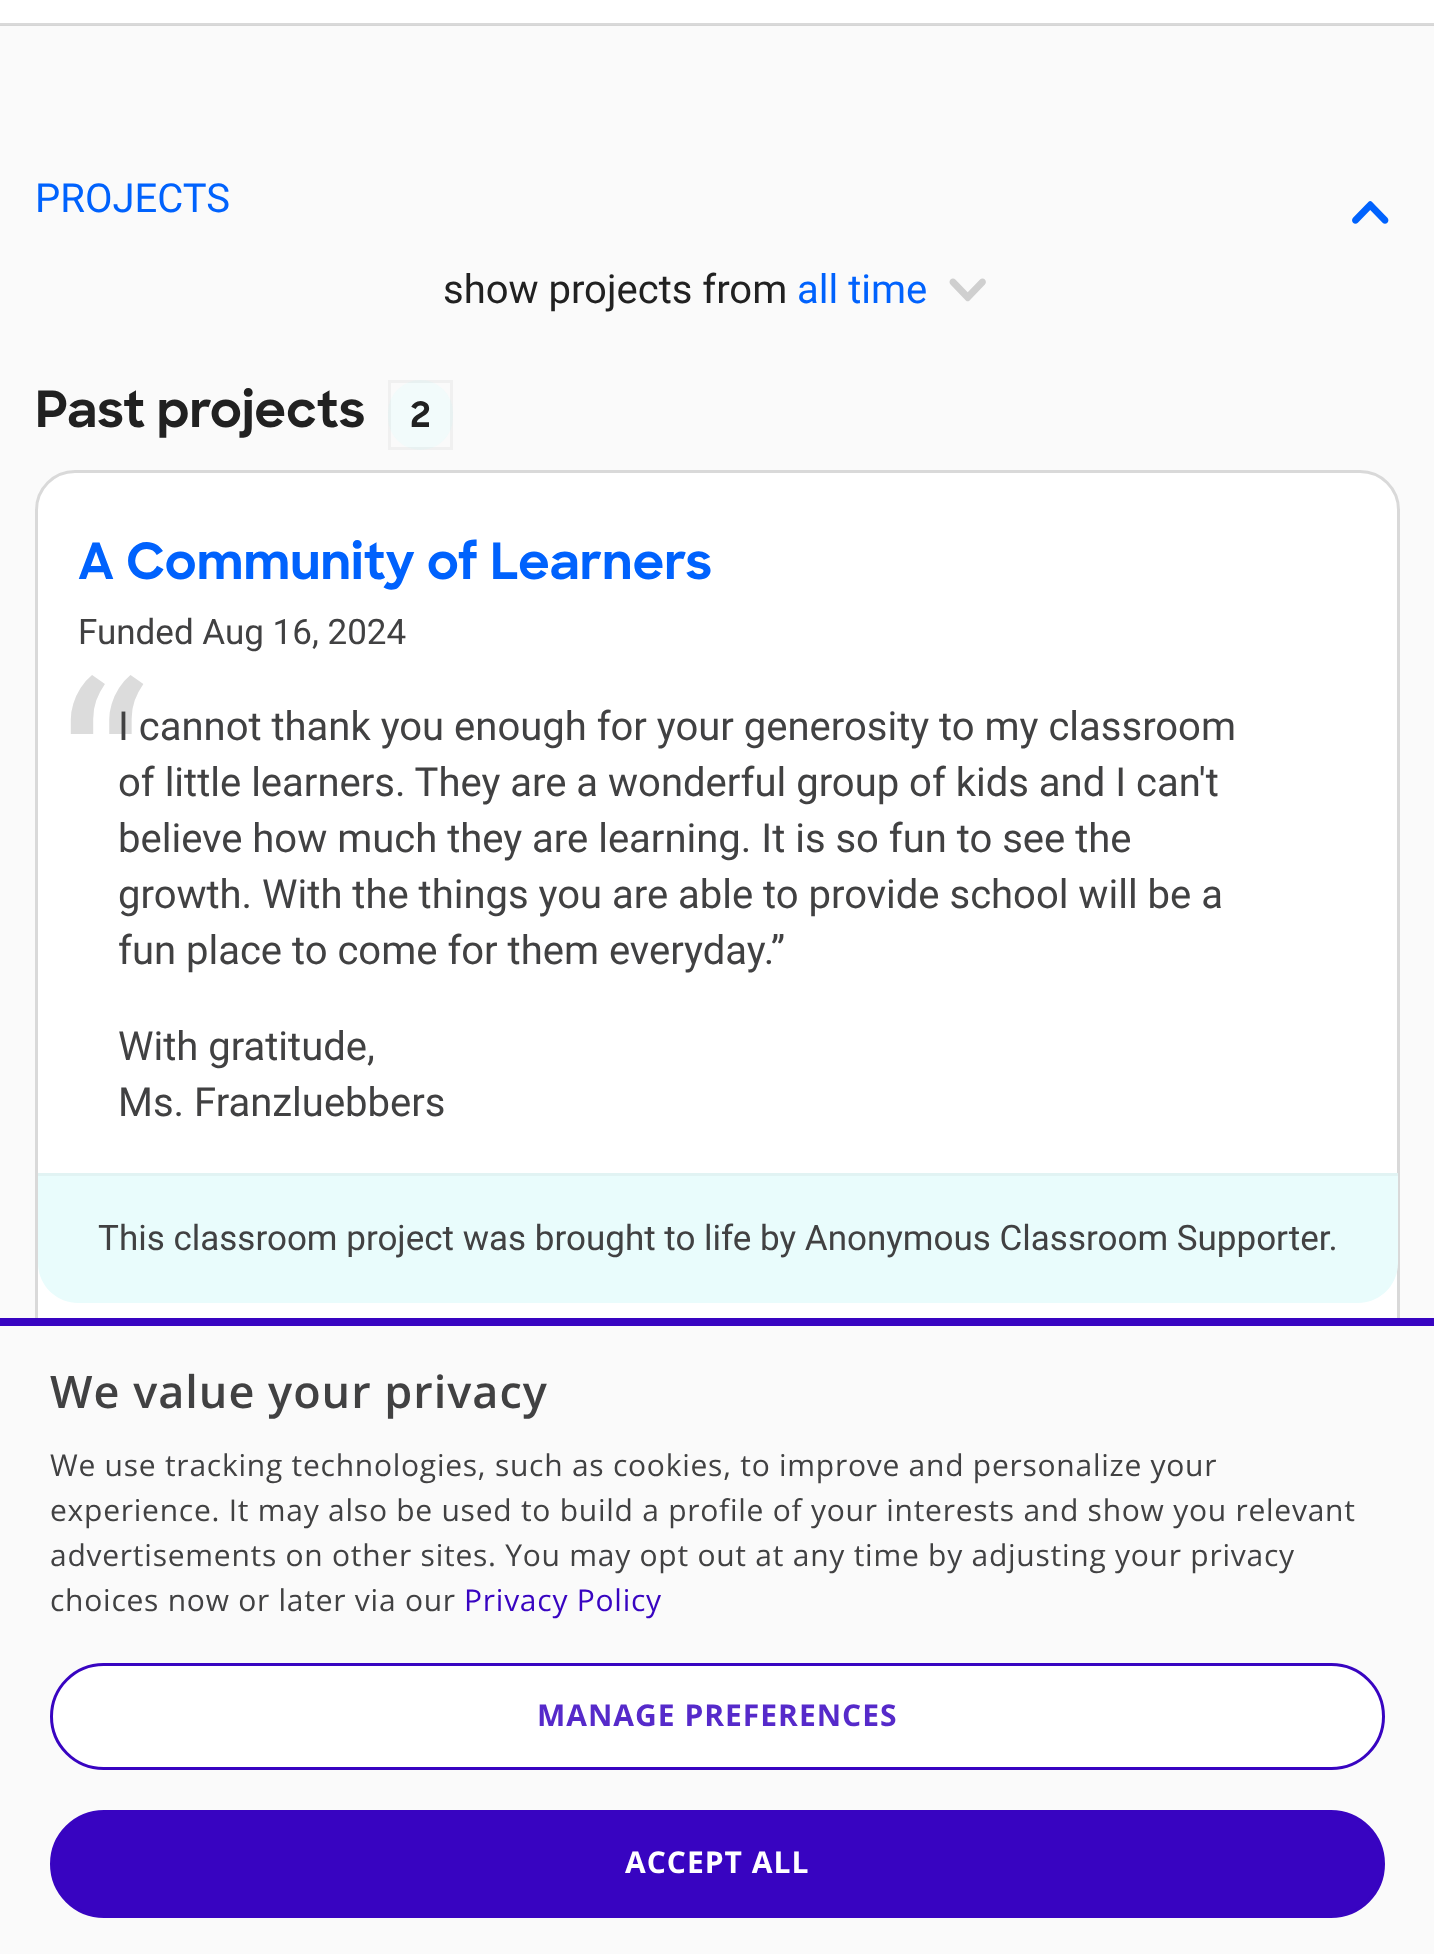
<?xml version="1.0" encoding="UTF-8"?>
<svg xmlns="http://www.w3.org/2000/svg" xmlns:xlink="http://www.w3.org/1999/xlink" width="1434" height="1954">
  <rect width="100%" height="100%" fill="#fafafa" />
  <rect y="25" width="1434" height="1" fill="#d5d5d5" />
  <rect width="1434" height="23" fill="#ffffff" />
  <rect y="23" width="1434" height="2" fill="#d9d9d9" />
  <image x="1352" y="201" width="37" height="23" xlink:href="image1.png" />
  <image x="949" y="278" width="37" height="24" xlink:href="image2.png" />
  <rect x="388" y="380" width="65" height="70" rx="32.5" fill="#f2fbfb" />
  <rect x="389.5" y="381.5" width="62" height="67" fill="none" stroke="#414142" stroke-opacity="0.05" stroke-width="3" />
  <rect x="36.5" y="471.5" width="1362" height="892" rx="38.5" fill="#ffffff" stroke="#d9d9d9" stroke-width="3" />
  <path d="M 38 1173 h 1360 v 90 c 0 22 -18 40 -40 40 h -1280 c -22 0 -40 -18 -40 -40 z" fill="#e9fcfc" />
  <rect x="38" y="1173" width="1360" height="3" fill="#e1f3f3" />
  <rect x="35" y="1326" width="1365" height="39" fill="#fafafa" />
  <rect y="1318" width="1434" height="8" fill="#3804c1" />
  <rect x="51.5" y="1664.5" width="1332" height="104" rx="52" fill="#ffffff" stroke="#3804c1" stroke-width="3" />
  <rect x="51.5" y="1811.5" width="1332" height="105" rx="52.5" fill="#3804c1" stroke="#3804c1" stroke-width="3" />
  <text x="35" y="212" style="font-family: Roboto; font-size: 40px; fill: #0062fd">PROJECTS</text>
  <text x="443" y="303" style="font-family: Roboto; font-size: 40px; fill: #212121">show projects from</text>
  <text x="797" y="303" style="font-family: Roboto; font-size: 40px; fill: #0062fd">all time</text>
  <text x="35" y="427" style="font-family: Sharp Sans; font-size: 50px; font-weight: bold; fill: #212121">Past projects</text>
  <text x="410" y="427" style="font-family: Sharp Sans; font-size: 35px; font-weight: bold; fill: #212121">2</text>
  <text x="78" y="579" style="font-family: Sharp Sans; font-size: 50px; font-weight: bold; fill: #0062fd">A Community of Learners</text>
  <text x="78" y="644" style="font-family: Roboto; font-size: 35px; fill: #414142">Funded Aug 16, 2024</text>
  <text x="58" y="865" style="font-family: Roboto; font-size: 250px; fill: #dcdcdc">“</text>
  <text x="118" y="740" style="font-family: Roboto; font-size: 40px; fill: #414142">I cannot thank you enough for your generosity to my classroom</text>
  <text x="118" y="796" style="font-family: Roboto; font-size: 40px; fill: #414142">of little learners. They are a wonderful group of kids and I can't</text>
  <text x="118" y="852" style="font-family: Roboto; font-size: 40px; fill: #414142">believe how much they are learning. It is so fun to see the</text>
  <text x="118" y="908" style="font-family: Roboto; font-size: 40px; fill: #414142">growth. With the things you are able to provide school will be a</text>
  <text x="118" y="964" style="font-family: Roboto; font-size: 40px; fill: #414142">fun place to come for them everyday.”</text>
  <text x="118" y="1060" style="font-family: Roboto; font-size: 40px; fill: #414142">With gratitude,</text>
  <text x="118" y="1116" style="font-family: Roboto; font-size: 40px; fill: #414142">Ms. Franzluebbers</text>
  <text x="98" y="1250" style="font-family: Roboto; font-size: 35px; fill: #414142">This classroom project was brought to life by Anonymous Classroom Supporter.</text>
  <text x="50" y="1408" style="font-family: Open Sans; font-size: 45px; font-weight: 600; letter-spacing: 1px; fill: #414142">We value your privacy</text>
  <text x="50" y="1476" style="font-family: Open Sans; font-size: 30px; letter-spacing: 0.75px; fill: #414142">We use tracking technologies, such as cookies, to improve and personalize your</text>
  <text x="50" y="1521" style="font-family: Open Sans; font-size: 30px; letter-spacing: 0.75px; fill: #414142">experience. It may also be used to build a profile of your interests and show you relevant</text>
  <text x="50" y="1566" style="font-family: Open Sans; font-size: 30px; letter-spacing: 0.75px; fill: #414142">advertisements on other sites. You may opt out at any time by adjusting your privacy</text>
  <text x="50" y="1611" style="font-family: Open Sans; font-size: 30px; letter-spacing: 0.75px; fill: #414142">choices now or later via our</text>
  <text x="464" y="1611" style="font-family: Open Sans; font-size: 30px; letter-spacing: 0.75px; fill: #3804c1">Privacy Policy</text>
  <text x="537" y="1726" style="font-family: Open Sans; font-size: 30px; font-weight: bold; letter-spacing: 1px; fill: #562aca">MANAGE PREFERENCES</text>
  <text x="625" y="1873" style="font-family: Open Sans; font-size: 30px; font-weight: bold; letter-spacing: 1px; fill: #ffffff">ACCEPT ALL</text>
</svg>
